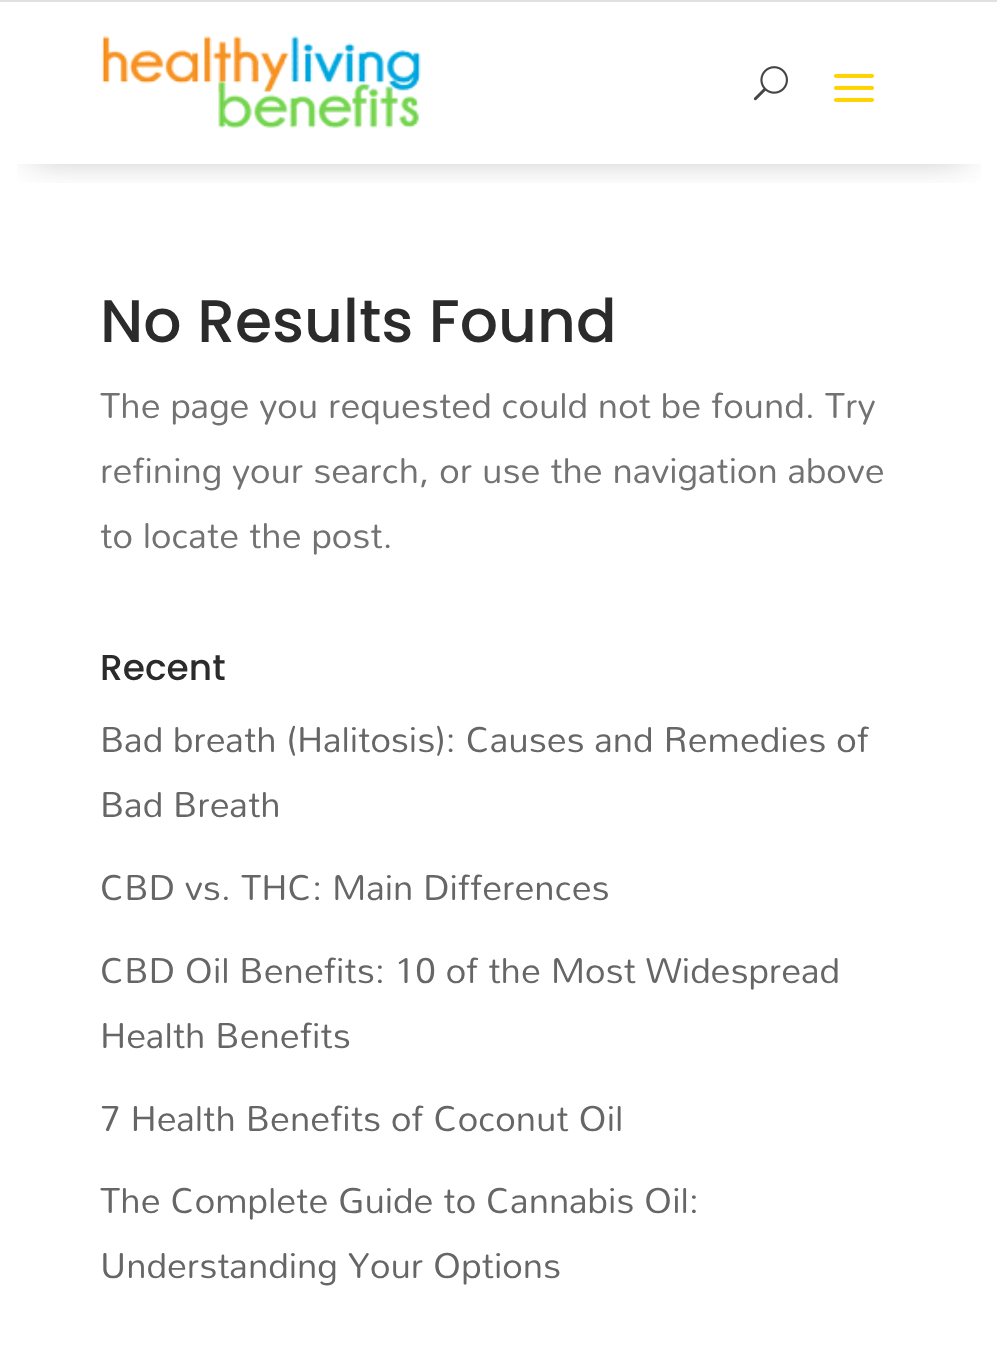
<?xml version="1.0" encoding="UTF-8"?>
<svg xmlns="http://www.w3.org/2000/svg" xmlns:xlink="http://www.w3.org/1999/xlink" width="997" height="1370">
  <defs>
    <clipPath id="clip1"><rect x="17" y="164" width="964" height="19" /></clipPath>
  </defs>
  <rect width="100%" height="100%" fill="#ffffff" />
  <g clip-path="url(#clip1)">
    <rect x="32" y="56" width="934" height="100" fill="#000000" fill-opacity="0.3" filter="blur(18px)" />
  </g>
  <rect width="997" height="2" fill="#e0e0e0" />
  <image x="101" y="36" width="320" height="93" xlink:href="image1.png" />
  <image x="753" y="66" width="35" height="35" xlink:href="image2.png" />
  <image x="834" y="73" width="40" height="29" xlink:href="image3.png" />
  <text x="100" y="342" style="font-family: Poppins; font-size: 60px; font-weight: 500; fill: #2b2b2b">No Results Found</text>
  <text x="100" y="418" style="font-family: Mandali; font-size: 36px; fill: #727272">The page you requested could not be found. Try</text>
  <text x="100" y="483" style="font-family: Mandali; font-size: 36px; fill: #727272">refining your search, or use the navigation above</text>
  <text x="100" y="548" style="font-family: Mandali; font-size: 36px; fill: #727272">to locate the post.</text>
  <text x="100" y="680" style="font-family: Poppins; font-size: 36px; font-weight: 500; fill: #2b2b2b">Recent</text>
  <text x="100" y="752" style="font-family: Mandali; font-size: 36px; fill: #666666">Bad breath (Halitosis): Causes and Remedies of</text>
  <text x="100" y="817" style="font-family: Mandali; font-size: 36px; fill: #666666">Bad Breath</text>
  <text x="100" y="900" style="font-family: Mandali; font-size: 36px; fill: #666666">CBD vs. THC: Main Differences</text>
  <text x="100" y="983" style="font-family: Mandali; font-size: 36px; fill: #666666">CBD Oil Benefits: 10 of the Most Widespread</text>
  <text x="100" y="1048" style="font-family: Mandali; font-size: 36px; fill: #666666">Health Benefits</text>
  <text x="100" y="1131" style="font-family: Mandali; font-size: 36px; fill: #666666">7 Health Benefits of Coconut Oil</text>
  <text x="100" y="1213" style="font-family: Mandali; font-size: 36px; fill: #666666">The Complete Guide to Cannabis Oil:</text>
  <text x="100" y="1278" style="font-family: Mandali; font-size: 36px; fill: #666666">Understanding Your Options</text>
</svg>
